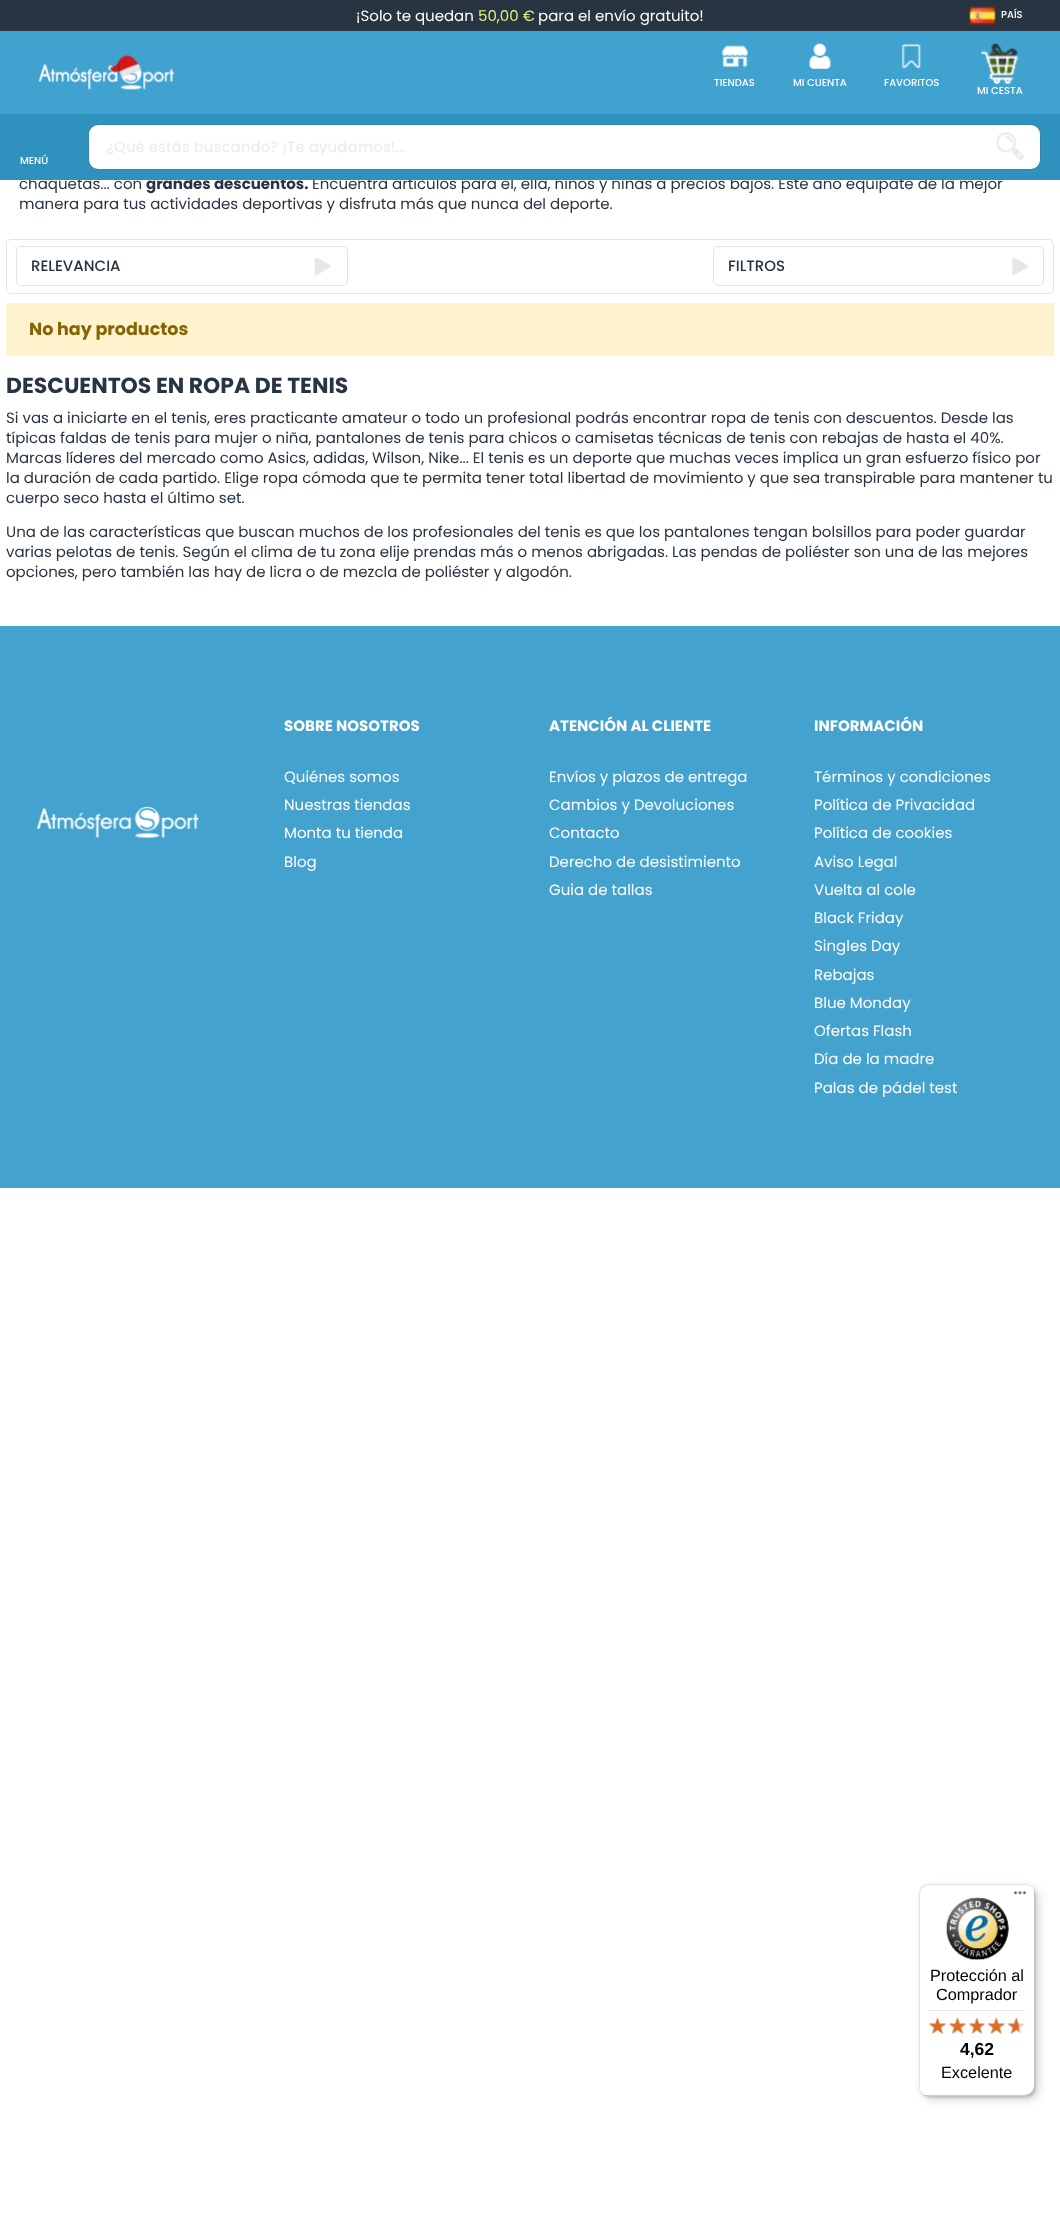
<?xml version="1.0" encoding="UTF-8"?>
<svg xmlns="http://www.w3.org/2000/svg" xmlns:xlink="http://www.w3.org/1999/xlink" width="1060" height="2213">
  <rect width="100%" height="100%" fill="#ffffff" />
  <rect y="31" width="1060" height="83" fill="#40a2cf" />
  <rect width="1060" height="31" fill="#283442" />
  <image x="969" y="6" width="27" height="19" xlink:href="image1.png" />
  <image x="38" y="55" width="137" height="35" xlink:href="image2.png" />
  <image x="722" y="45" width="27" height="23" xlink:href="image3.png" />
  <image x="809" y="43" width="23" height="26" xlink:href="image4.png" />
  <image x="901" y="43" width="20" height="26" xlink:href="image5.png" />
  <image x="980" y="43" width="39" height="41" xlink:href="image6.png" />
  <rect x="6.5" y="239.5" width="1047" height="54" rx="4.5" fill="none" stroke="#e3e3e3" />
  <rect x="16.5" y="246.5" width="331" height="39" rx="4.5" fill="none" stroke="#e3e3e3" />
  <image x="314" y="258" width="17" height="17" xlink:href="image8.png" />
  <rect x="713.5" y="246.5" width="330" height="39" rx="4.5" fill="none" stroke="#e3e3e3" />
  <rect x="714" y="248" width="329" height="37" rx="5" fill="#ffffff" />
  <image x="1012" y="258" width="16" height="17" xlink:href="image9.png" />
  <rect x="6" y="303" width="1048" height="53" fill="#fff3cd" />
  <rect y="626" width="1060" height="562" fill="#43a2ce" />
  <image x="36" y="806" width="163" height="33" xlink:href="image10.png" />
  <rect x="923" y="1888" width="116" height="212" rx="10" fill="#000000" fill-opacity="0.15" filter="blur(5px)" />
  <rect x="920" y="1885" width="116" height="213" rx="10" fill="#000000" fill-opacity="0.15" filter="blur(1px)" />
  <rect x="919" y="1884" width="116" height="212" rx="10" fill="#ffffff" />
  <path d="M 930 1885 h 96 c 2 0 4 0 5 1 c -1 -1 -4 -2 -6 -2 h -96 c -6 0 -10 4 -10 10 v 192 c 0 2 1 4 2 6 l -1 -4 v -193 c 0 -6 4 -10 10 -10 z" fill="#e5e5e5" />
  <path d="M 923 2094 c 1 1 4 2 6 2 h 96 c 6 0 10 -4 10 -10 v -192 c 0 -2 -1 -4 -2 -6 c 1 1 1 3 1 4 v 193 c 0 6 -5 10 -10 10 h -96 c -2 0 -4 0 -5 -1 z" fill="#000000" fill-opacity="0.2" />
  <path d="M 1024 2096 h 1 c 6 0 10 -4 10 -10 v -192 c 0 -2 -1 -5 -2 -6 c 1 1 1 3 1 5 v 193 c 0 5 -4 10 -10 10 z" fill="#323232" fill-opacity="0.2" />
  <path d="M 1024 2096 h 1 c 6 0 10 -4 10 -10 v -192 c 0 -3 -1 -6 -4 -8 c 2 2 3 5 3 7 v 193 c 0 5 -4 10 -10 10 z" fill="#ffffff" fill-opacity="0.3" />
  <image x="1013" y="1891" width="13" height="4" xlink:href="image11.png" />
  <image x="946" y="1897" width="63" height="64" xlink:href="image12.png" />
  <rect x="929" y="2010" width="96" height="1" fill="#e5e5e5" />
  <image x="929" y="2018" width="17" height="16" xlink:href="image18.png" />
  <image x="928" y="2017" width="18" height="17" xlink:href="image13.png" />
  <image x="949" y="2018" width="17" height="16" xlink:href="image19.png" />
  <image x="948" y="2017" width="19" height="17" xlink:href="image14.png" />
  <image x="969" y="2018" width="16" height="16" xlink:href="image20.png" />
  <image x="968" y="2017" width="17" height="17" xlink:href="image15.png" />
  <image x="987" y="2017" width="18" height="17" xlink:href="image21.png" />
  <image x="987" y="2017" width="18" height="17" xlink:href="image16.png" />
  <image x="1007" y="2018" width="18" height="16" xlink:href="image22.png" />
  <image x="1007" y="2017" width="12" height="17" xlink:href="image17.png" />
  <text x="356" y="21" style="font-family: Poppins; font-size: 15px; fill: #ffffff">¡Solo te quedan</text>
  <text x="478" y="21" style="font-family: Poppins; font-size: 15px; fill: #e0f57a">50,00 €</text>
  <text x="538" y="21" style="font-family: Poppins; font-size: 15px; fill: #ffffff">para el envío gratuito!</text>
  <text x="1001" y="18" style="font-family: Poppins; font-size: 10px; font-weight: 500; fill: #ffffff">PAÍS</text>
  <text x="714" y="86" style="font-family: Poppins; font-size: 10px; font-weight: 500; fill: #ffffff">TIENDAS</text>
  <text x="793" y="86" style="font-family: Poppins; font-size: 10px; font-weight: 500; fill: #ffffff">MI CUENTA</text>
  <text x="884" y="86" style="font-family: Poppins; font-size: 10px; font-weight: 500; fill: #ffffff">FAVORITOS</text>
  <text x="977" y="94" style="font-family: Poppins; font-size: 10px; font-weight: 500; fill: #ffffff">MI CESTA</text>
  <text x="19" y="189" style="font-family: Poppins; font-size: 15px; fill: #283442">chaquetas... con</text>
  <text x="146" y="189" style="font-family: Poppins; font-size: 15px; font-weight: bold; fill: #283442">grandes descuentos.</text>
  <text x="312" y="189" style="font-family: Poppins; font-size: 15px; fill: #283442">Encuentra artículos para él, ella, niños y niñas a precios bajos. Este año equípate de la mejor</text>
  <rect y="114" width="1060" height="66" fill="#2e91be" />
  <rect x="89" y="125" width="951" height="44" rx="9" fill="#ffffff" />
  <rect x="88.5" y="124.5" width="952" height="45" rx="9.5" fill="none" stroke="#4f5e6f" stroke-opacity="0.24" />
  <image x="996" y="132" width="28" height="28" xlink:href="image7.png" />
  <text x="106" y="152" style="font-family: Poppins; font-size: 15px; font-weight: 500; fill: #ebedef">¿Qué estás buscando? ¡Te ayudamos!...</text>
  <text x="20" y="164" style="font-family: Poppins; font-size: 10px; font-weight: 500; fill: #ffffff">MENÚ</text>
  <text x="19" y="209" style="font-family: Poppins; font-size: 15px; fill: #283442">manera para tus actividades deportivas y disfruta más que nunca del deporte.</text>
  <text x="31" y="271" style="font-family: Poppins; font-size: 15px; font-weight: 500; fill: #283442">RELEVANCIA</text>
  <text x="728" y="271" style="font-family: Poppins; font-size: 15px; font-weight: 500; fill: #283442">FILTROS</text>
  <text x="29" y="335" style="font-family: Poppins; font-size: 17.5px; font-weight: bold; fill: #856404">No hay productos</text>
  <text x="6" y="393" style="font-family: Poppins; font-size: 21.9px; font-weight: bold; fill: #283442">DESCUENTOS EN ROPA DE TENIS</text>
  <text x="6" y="423" style="font-family: Poppins; font-size: 15px; fill: #283442">Si vas a iniciarte en el tenis, eres practicante amateur o todo un profesional podrás encontrar ropa de tenis con descuentos. Desde las</text>
  <text x="6" y="443" style="font-family: Poppins; font-size: 15px; fill: #283442">típicas faldas de tenis para mujer o niña, pantalones de tenis para chicos o camisetas técnicas de tenis con rebajas de hasta el 40%.</text>
  <text x="6" y="463" style="font-family: Poppins; font-size: 15px; fill: #283442">Marcas líderes del mercado como Asics, adidas, Wilson, Nike... El tenis es un deporte que muchas veces implica un gran esfuerzo físico por</text>
  <text x="6" y="483" style="font-family: Poppins; font-size: 15px; fill: #283442">la duración de cada partido. Elige ropa cómoda que te permita tener total libertad de movimiento y que sea transpirable para mantener tu</text>
  <text x="6" y="503" style="font-family: Poppins; font-size: 15px; fill: #283442">cuerpo seco hasta el último set.</text>
  <text x="6" y="537" style="font-family: Poppins; font-size: 15px; fill: #283442">Una de las características que buscan muchos de los profesionales del tenis es que los pantalones tengan bolsillos para poder guardar</text>
  <text x="6" y="557" style="font-family: Poppins; font-size: 15px; fill: #283442">varias pelotas de tenis. Según el clima de tu zona elije prendas más o menos abrigadas. Las pendas de poliéster son una de las mejores</text>
  <text x="6" y="577" style="font-family: Poppins; font-size: 15px; fill: #283442">opciones, pero también las hay de licra o de mezcla de poliéster y algodón.</text>
  <text x="284" y="731" style="font-family: Poppins; font-size: 15px; font-weight: bold; fill: #ffffff">SOBRE NOSOTROS</text>
  <text x="284" y="782" style="font-family: Poppins; font-size: 15px; fill: #ffffff">Quiénes somos</text>
  <text x="284" y="810" style="font-family: Poppins; font-size: 15px; fill: #ffffff">Nuestras tiendas</text>
  <text x="284" y="838" style="font-family: Poppins; font-size: 15px; fill: #ffffff">Monta tu tienda</text>
  <text x="284" y="867" style="font-family: Poppins; font-size: 15px; fill: #ffffff">Blog</text>
  <text x="549" y="731" style="font-family: Poppins; font-size: 15px; font-weight: bold; fill: #ffffff">ATENCIÓN AL CLIENTE</text>
  <text x="549" y="782" style="font-family: Poppins; font-size: 15px; fill: #ffffff">Envíos y plazos de entrega</text>
  <text x="549" y="810" style="font-family: Poppins; font-size: 15px; fill: #ffffff">Cambios y Devoluciones</text>
  <text x="549" y="838" style="font-family: Poppins; font-size: 15px; fill: #ffffff">Contacto</text>
  <text x="549" y="867" style="font-family: Poppins; font-size: 15px; fill: #ffffff">Derecho de desistimiento</text>
  <text x="549" y="895" style="font-family: Poppins; font-size: 15px; fill: #ffffff">Guia de tallas</text>
  <text x="814" y="731" style="font-family: Poppins; font-size: 15px; font-weight: bold; fill: #ffffff">INFORMACIÓN</text>
  <text x="814" y="782" style="font-family: Poppins; font-size: 15px; fill: #ffffff">Términos y condiciones</text>
  <text x="814" y="810" style="font-family: Poppins; font-size: 15px; fill: #ffffff">Política de Privacidad</text>
  <text x="814" y="838" style="font-family: Poppins; font-size: 15px; fill: #ffffff">Política de cookies</text>
  <text x="814" y="867" style="font-family: Poppins; font-size: 15px; fill: #ffffff">Aviso Legal</text>
  <text x="814" y="895" style="font-family: Poppins; font-size: 15px; fill: #ffffff">Vuelta al cole</text>
  <text x="814" y="923" style="font-family: Poppins; font-size: 15px; fill: #ffffff">Black Friday</text>
  <text x="814" y="951" style="font-family: Poppins; font-size: 15px; fill: #ffffff">Singles Day</text>
  <text x="814" y="980" style="font-family: Poppins; font-size: 15px; fill: #ffffff">Rebajas</text>
  <text x="814" y="1008" style="font-family: Poppins; font-size: 15px; fill: #ffffff">Blue Monday</text>
  <text x="814" y="1036" style="font-family: Poppins; font-size: 15px; fill: #ffffff">Ofertas Flash</text>
  <text x="814" y="1064" style="font-family: Poppins; font-size: 15px; fill: #ffffff">Día de la madre</text>
  <text x="814" y="1093" style="font-family: Poppins; font-size: 15px; fill: #ffffff">Palas de pádel test</text>
  <text x="930" y="1981" style="font-family: Liberation Sans; font-size: 16.25px; fill: #000000">Protección al</text>
  <text x="936" y="2000" style="font-family: Liberation Sans; font-size: 16.25px; fill: #000000">Comprador</text>
  <text x="960" y="2055" style="font-family: Liberation Sans; font-size: 17.5px; font-weight: bold; fill: #000000">4,62</text>
  <text x="941" y="2078" style="font-family: Liberation Sans; font-size: 16.25px; fill: #000000">Excelente</text>
</svg>
